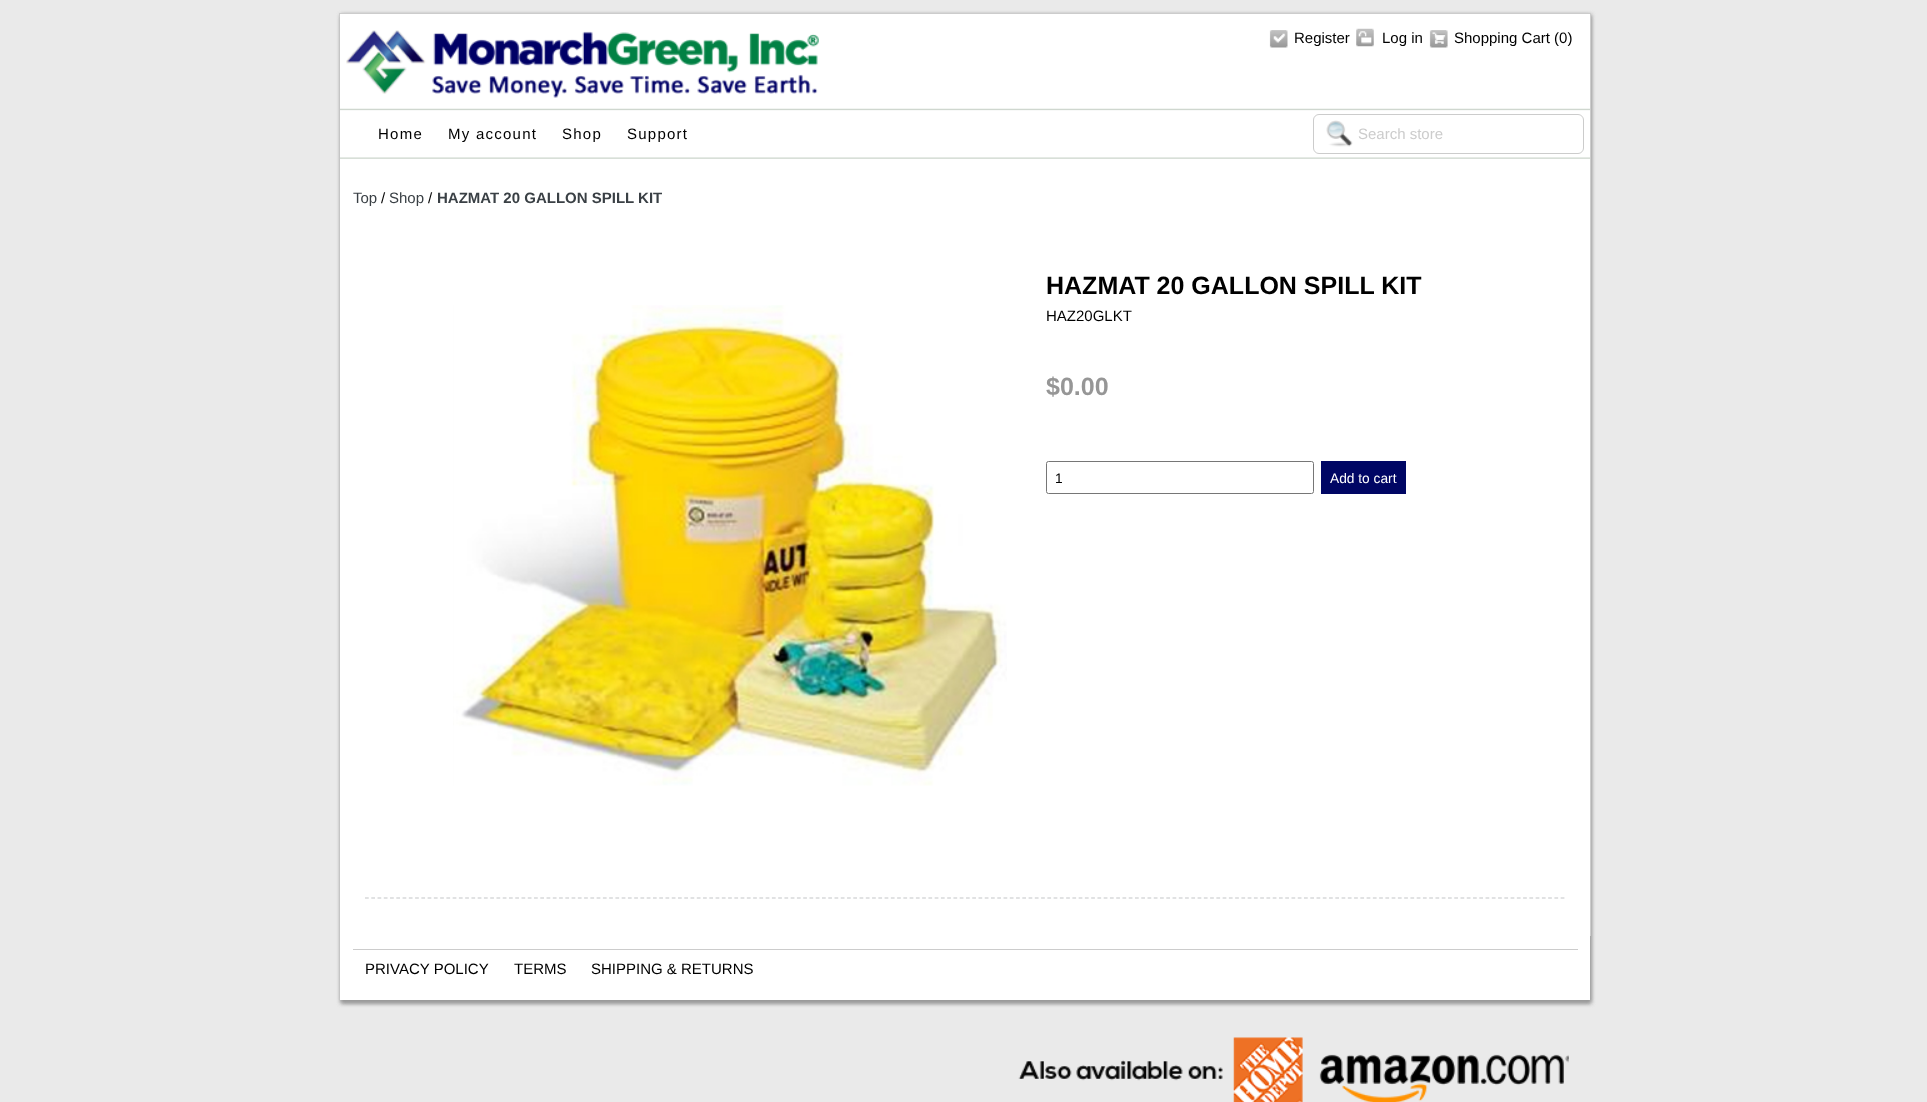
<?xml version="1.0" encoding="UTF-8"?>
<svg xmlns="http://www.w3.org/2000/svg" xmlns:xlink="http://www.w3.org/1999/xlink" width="1927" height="1102">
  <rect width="100%" height="100%" fill="#eaeaea" />
  <rect x="341" y="15" width="1250" height="988" fill="#999999" filter="blur(2px)" />
  <rect x="341" y="15" width="1250" height="988" fill="#999999" filter="blur(2px)" />
  <rect x="339" y="13" width="1252" height="1" fill="#cccccc" />
  <rect x="1590" y="13" width="1" height="923" fill="#cccccc" />
  <rect x="339" y="13" width="1" height="4" fill="#cccccc" />
  <rect x="340" y="14" width="1250" height="986" fill="#ffffff" />
  <image x="346" y="30" width="473" height="68" xlink:href="image1.png" />
  <image x="1269" y="30" width="19" height="18" xlink:href="image2.png" />
  <image x="1356" y="28" width="18" height="19" xlink:href="image3.png" />
  <image x="1429" y="30" width="19" height="18" xlink:href="image4.png" />
  <image x="340" y="108" width="1250" height="51" xlink:href="image5.png" />
  <image x="1326" y="120" width="27" height="27" xlink:href="image6.png" />
  <rect x="1313.5" y="114.5" width="270" height="39" rx="5.5" fill="none" stroke="#cccccc" />
  <image x="453" y="305" width="554" height="481" xlink:href="image7.png" />
  <rect x="1046.5" y="461.5" width="267" height="32" rx="2" fill="none" stroke="#767676" />
  <rect x="1321" y="461" width="85" height="33" fill="#000664" />
  <path d="M 365 898 h 1200" fill="none" stroke="#c4c6c8" stroke-width="1.2" stroke-dasharray="3.75 2.51" />
  <rect x="353" y="949" width="1225" height="1" fill="#cccccc" />
  <image x="1018" y="1037" width="551" height="65" xlink:href="image8.png" />
  <text x="1294" y="43" style="font-family: Liberation Sans; font-size: 15px; fill: #000000">Register</text>
  <text x="1382" y="43" style="font-family: Liberation Sans; font-size: 15px; fill: #000000">Log in</text>
  <text x="1454" y="43" style="font-family: Liberation Sans; font-size: 15px; fill: #000000">Shopping Cart (0)</text>
  <text x="378" y="139" style="font-family: Liberation Sans; font-size: 15px; letter-spacing: 1.25px; fill: #000000">Home</text>
  <text x="448" y="139" style="font-family: Liberation Sans; font-size: 15px; letter-spacing: 1.25px; fill: #000000">My account</text>
  <text x="562" y="139" style="font-family: Liberation Sans; font-size: 15px; letter-spacing: 1.25px; fill: #000000">Shop</text>
  <text x="627" y="139" style="font-family: Liberation Sans; font-size: 15px; letter-spacing: 1.25px; fill: #000000">Support</text>
  <text x="1358" y="139" style="font-family: Liberation Sans; font-size: 15px; fill: #cccccc">Search store</text>
  <text x="353" y="203" style="font-family: Liberation Sans; font-size: 15px; fill: #3a4045">Top</text>
  <text x="381" y="203" style="font-family: Liberation Sans; font-size: 15px; fill: #000000">/</text>
  <text x="389" y="203" style="font-family: Liberation Sans; font-size: 15px; fill: #3a4045">Shop</text>
  <text x="428" y="203" style="font-family: Liberation Sans; font-size: 15px; fill: #000000">/</text>
  <text x="437" y="203" style="font-family: Liberation Sans; font-size: 15px; font-weight: bold; fill: #3a4045">HAZMAT 20 GALLON SPILL KIT</text>
  <text x="1046" y="294" style="font-family: Liberation Sans; font-size: 25px; font-weight: bold; fill: #000000">HAZMAT 20 GALLON SPILL KIT</text>
  <text x="1046" y="321" style="font-family: Liberation Sans; font-size: 15px; fill: #000000">HAZ20GLKT</text>
  <text x="1046" y="395" style="font-family: Liberation Sans; font-size: 25px; font-weight: bold; fill: #969696">$0.00</text>
  <text x="1055" y="483" style="font-family: Liberation Sans; font-size: 13.75px; fill: #000000">1</text>
  <text x="1330" y="483" style="font-family: Liberation Sans; font-size: 13.75px; fill: #ffffff">Add to cart</text>
  <text x="365" y="974" style="font-family: Liberation Sans; font-size: 15px; fill: #000000">PRIVACY POLICY</text>
  <text x="514" y="974" style="font-family: Liberation Sans; font-size: 15px; fill: #000000">TERMS</text>
  <text x="591" y="974" style="font-family: Liberation Sans; font-size: 15px; fill: #000000">SHIPPING &amp; RETURNS</text>
</svg>
